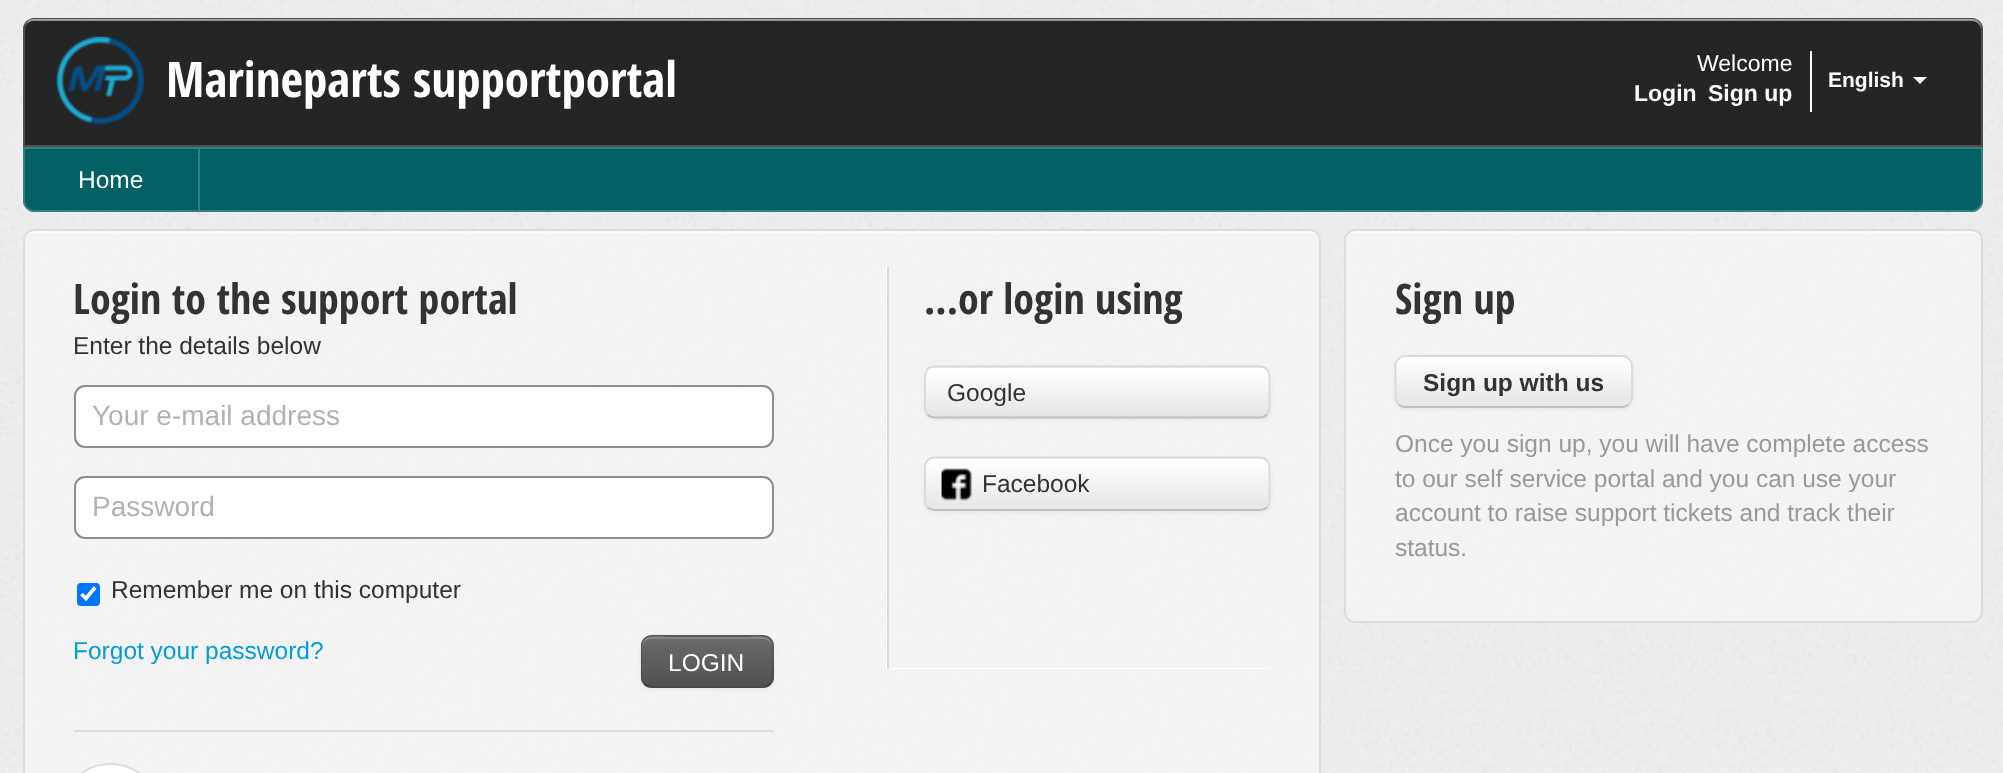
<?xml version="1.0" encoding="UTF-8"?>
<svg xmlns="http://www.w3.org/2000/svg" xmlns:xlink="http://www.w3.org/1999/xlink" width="2003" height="773">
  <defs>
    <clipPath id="clip1"><rect x="641" y="635" width="133" height="53" rx="11" /></clipPath>
    <linearGradient id="g1" gradientUnits="userSpaceOnUse" x1="707" y1="637" x2="707" y2="686"><stop offset="0" stop-color="#6c6a6a" /><stop offset="1" stop-color="#525151" /></linearGradient>
    <clipPath id="clip2"><rect x="924" y="366" width="347" height="52" rx="11" /></clipPath>
    <linearGradient id="g2" gradientUnits="userSpaceOnUse" x1="1097" y1="368" x2="1097" y2="417"><stop offset="0" stop-color="#ffffff" /><stop offset="1" stop-color="#e6e6e6" /></linearGradient>
    <clipPath id="clip3"><rect x="924" y="457" width="347" height="54" rx="11" /></clipPath>
    <linearGradient id="g3" gradientUnits="userSpaceOnUse" x1="1097" y1="459" x2="1097" y2="509"><stop offset="0" stop-color="#ffffff" /><stop offset="1" stop-color="#e6e6e6" /></linearGradient>
    <clipPath id="clip4"><rect x="1395" y="355" width="238" height="53" rx="11" /></clipPath>
    <linearGradient id="g4" gradientUnits="userSpaceOnUse" x1="1514" y1="357" x2="1514" y2="406"><stop offset="0" stop-color="#ffffff" /><stop offset="1" stop-color="#e6e6e6" /></linearGradient>
  </defs>
  <rect width="100%" height="100%" fill="#efefef" />
  <image x="0" y="0" width="2003" height="773" xlink:href="image1.png" />
  <path d="M 34 18 h 1938 c 6 0 11 5 11 11 v 118 h -1960 v -118 c 0 -6 5 -11 11 -11 z" fill="#252525" />
  <path d="M 33 21 h 1939 c 5 0 9 4 9 9 v -2 c 0 -5 -4 -9 -9 -9 h -1938 c -4 0 -7 2 -8 6 c 1 -2 4 -4 7 -4 z" fill="#929292" />
  <path d="M 34 19 h 1938 c 5.5 0 10 4.5 10 10 v 117 h -1958 v -117 c 0 -5.5 4.5 -10 10 -10 z" fill="none" stroke="#ffffff" stroke-opacity="0.2" stroke-width="2" />
  <image x="55" y="36" width="91" height="89" xlink:href="image2.png" />
  <rect x="1810" y="51" width="2" height="61" fill="#ffffff" />
  <path d="M 1913 77 h 14 l -7 7 z" fill="#ffffff" />
  <path d="M 23 147 h 1960 v 54 c 0 6 -5 11 -11 11 h -1938 c -6 0 -11 -5 -11 -11 z" fill="#006063" />
  <path d="M 24 148 h 1958 v 53 c 0 5.5 -4.5 10 -10 10 h -1938 c -5.5 0 -10 -4.5 -10 -10 z" fill="none" stroke="#ffffff" stroke-opacity="0.2" stroke-width="2" />
  <rect x="198" y="149" width="2" height="61" fill="#338082" />
  <rect x="23" y="229" width="1298" height="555" rx="11" fill="#f4f4f4" fill-opacity="0.9" />
  <path d="M 33 233 h 1278 c 5 0 9 4 9 9 v -2 c 0 -5 -4 -9 -9 -9 h -1277 c -4 0 -7 2 -8 6 c 1 -2 4 -4 7 -4 z" fill="#fbfbfb" />
  <rect x="24" y="230" width="1296" height="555" rx="10" fill="none" stroke="#dcdcdc" stroke-width="2" />
  <rect x="75" y="386" width="698" height="61" rx="10" fill="#ffffff" stroke="#8c8c8c" stroke-width="2" />
  <rect x="75" y="477" width="698" height="61" rx="10" fill="#ffffff" stroke="#8c8c8c" stroke-width="2" />
  <rect x="77" y="583" width="23" height="23" rx="4" fill="#0075ff" />
  <path d="M 81.5 594 l 4.5 4.5 l 9 -11" fill="none" stroke="#ffffff" stroke-width="3.6" />
  <rect x="641" y="637" width="133" height="53" rx="11" fill="#000000" fill-opacity="0.05" filter="blur(2px)" />
  <rect x="641" y="635" width="133" height="53" rx="11" fill="#626060" />
  <g clip-path="url(#clip1)">
    <rect x="641" y="637" width="133" height="49" fill="url(#g1)" />
  </g>
  <path d="M 651 639 h 112 c 5 0 9 4 9 9 c 0 -16 -16 -11 -28 -11 h -74 c -12 0 -28 -5 -28 11 c 0 -5 4 -9 9 -9 z" fill="#ffffff" fill-opacity="0.2" />
  <path d="M 770 684 c -2 2 -4.5 3 -7 3 h -112 c -2.5 0 -5 -1 -7 -3" fill="none" stroke="#000000" stroke-opacity="0.25" stroke-width="1.8" />
  <path d="M 644 684 c -3 -3.5 -2.5 -7.5 -2.5 -12 v -28 c 2.5 -12 21.5 -8 28 -8 h 75 c 29 0 28 -2.5 28 25.5 v 10.5 c 0 4.5 0.5 8.5 -2.5 12" fill="none" stroke="#000000" stroke-opacity="0.1" stroke-width="1.8" />
  <rect x="74" y="730" width="700" height="2" fill="#dddddd" />
  <rect x="75" y="764" width="71" height="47" rx="35.5" fill="#ffffff" stroke="#dddddd" stroke-width="2" />
  <path d="M 886 266 v 403 h 383 v -1 h -382 v -402 z" fill="#ffffff" />
  <rect x="887" y="266" width="2" height="403" fill="#dadada" />
  <rect x="924" y="368" width="347" height="52" rx="11" fill="#000000" fill-opacity="0.05" filter="blur(2px)" />
  <rect x="924" y="366" width="347" height="52" rx="11" fill="#f5f5f5" />
  <g clip-path="url(#clip2)">
    <rect x="924" y="368" width="347" height="49" fill="url(#g2)" />
  </g>
  <path d="M 1267 414.5 c -2 2 -4.5 3 -7 3 h -325.5 c -2.5 0 -5 -1 -7 -3" fill="none" stroke="#bfbfbf" stroke-width="1.8" />
  <path d="M 927.5 414.5 c -3 -3.5 -2.5 -7.5 -2.5 -12 v -15.5 c 0 -8 -2 -20.5 9.5 -20.5 h 325.5 c 11.5 0 9.5 12.5 9.5 20.5 v 15.5 c 0 4.5 0.5 8.5 -2.5 12" fill="none" stroke="#d9d9d9" stroke-width="1.8" />
  <rect x="924" y="459" width="347" height="54" rx="11" fill="#000000" fill-opacity="0.05" filter="blur(2px)" />
  <rect x="924" y="457" width="347" height="54" rx="11" fill="#f5f5f5" />
  <g clip-path="url(#clip3)">
    <rect x="924" y="459" width="347" height="50" fill="url(#g3)" />
  </g>
  <path d="M 1267 507.5 c -2 1.5 -4.5 2.5 -7 2.5 h -325.5 c -2.5 0 -5 -1 -7 -2.5" fill="none" stroke="#bfbfbf" stroke-width="1.8" />
  <path d="M 927.5 507.5 c -1.5 -2 -2.5 -4.5 -2.5 -7 v -33.5 c 0 -2.5 1 -5 2.5 -6.5 c 2 -2 4.5 -3 7 -3 h 325.5 c 2.5 0 5 1 7 3 c 1.5 1.5 2.5 4 2.5 6.5 v 33.5 c 0 2.5 -1 5 -2.5 7" fill="none" stroke="#d9d9d9" stroke-width="1.8" />
  <image x="941" y="468" width="31" height="33" xlink:href="image3.png" />
  <rect x="1344" y="229" width="639" height="394" rx="11" fill="#f4f4f4" fill-opacity="0.9" />
  <path d="M 1354 233 h 618 c 5 0 9 4 9 9 c 0 -6 -3 -11 -9 -11 h -617 c -6 0 -9 5 -9 11 c 0 -5 4 -9 8 -9 z" fill="#fbfbfb" />
  <rect x="1345" y="230" width="637" height="392" rx="10" fill="none" stroke="#dcdcdc" stroke-width="2" />
  <rect x="1395" y="357" width="238" height="53" rx="11" fill="#000000" fill-opacity="0.05" filter="blur(2px)" />
  <g clip-path="url(#clip4)">
    <rect x="1395" y="357" width="238" height="49" fill="url(#g4)" />
  </g>
  <path d="M 1629 404 c -1.5 2 -4 3 -7 3 h -217 c -2.5 0 -5 -1 -6.5 -3" fill="none" stroke="#bfbfbf" stroke-width="1.8" />
  <path d="M 1398.5 404 c -2 -1.5 -3 -4 -3 -7 v -31 c 0 -3 1 -5.5 3 -7 c 1.5 -2 4 -3 6.5 -3 h 217 c 3 0 5.5 1 7 3 c 2 1.5 3 4 3 7 v 31 c 0 3 -1 5.5 -3 7" fill="none" stroke="#d9d9d9" stroke-width="1.8" />
  <text x="166" y="97" style="font-family: Open Sans Condensed; font-size: 49px; font-weight: bold; fill: #ffffff">Marineparts supportportal</text>
  <text x="1697" y="71" style="font-family: Liberation Sans; font-size: 23px; fill: #ffffff">Welcome</text>
  <text x="1828" y="87" style="font-family: Liberation Sans; font-size: 21px; font-weight: bold; fill: #ffffff">English</text>
  <text x="1634" y="101" style="font-family: Liberation Sans; font-size: 23px; font-weight: bold; fill: #ffffff">Login</text>
  <text x="1708" y="101" style="font-family: Liberation Sans; font-size: 23px; font-weight: bold; fill: #ffffff">Sign up</text>
  <text x="78" y="188" style="font-family: Liberation Sans; font-size: 24.5px; fill: #ffffff">Home</text>
  <text x="73" y="314" style="font-family: Open Sans Condensed; font-size: 42px; font-weight: bold; fill: #333333">Login to the support portal</text>
  <text x="73" y="354" style="font-family: Liberation Sans; font-size: 24.5px; fill: #333333">Enter the details below</text>
  <text x="92" y="425" style="font-family: Liberation Sans; font-size: 28px; fill: #b2b2b2">Your e-mail address</text>
  <text x="92" y="516" style="font-family: Liberation Sans; font-size: 28px; fill: #b2b2b2">Password</text>
  <text x="111" y="598" style="font-family: Liberation Sans; font-size: 24.5px; fill: #333333">Remember me on this computer</text>
  <text x="73" y="659" style="font-family: Liberation Sans; font-size: 24.5px; fill: #049cdb">Forgot your password?</text>
  <text x="668" y="671" style="font-family: Liberation Sans; font-size: 24.5px; fill: #ffffff">LOGIN</text>
  <text x="924" y="314" style="font-family: Open Sans Condensed; font-size: 42px; font-weight: bold; fill: #333333">...or login using</text>
  <text x="947" y="401" style="font-family: Liberation Sans; font-size: 24.5px; fill: #333333">Google</text>
  <text x="982" y="492" style="font-family: Liberation Sans; font-size: 24.5px; fill: #333333">Facebook</text>
  <text x="1395" y="314" style="font-family: Open Sans Condensed; font-size: 42px; font-weight: bold; fill: #333333">Sign up</text>
  <text x="1423" y="391" style="font-family: Liberation Sans; font-size: 24.5px; font-weight: bold; fill: #333333">Sign up with us</text>
  <text x="1395" y="452" style="font-family: Liberation Sans; font-size: 24.5px; fill: #999999">Once you sign up, you will have complete access</text>
  <text x="1395" y="487" style="font-family: Liberation Sans; font-size: 24.5px; fill: #999999">to our self service portal and you can use your</text>
  <text x="1395" y="521" style="font-family: Liberation Sans; font-size: 24.5px; fill: #999999">account to raise support tickets and track their</text>
  <text x="1395" y="556" style="font-family: Liberation Sans; font-size: 24.5px; fill: #999999">status.</text>
</svg>
